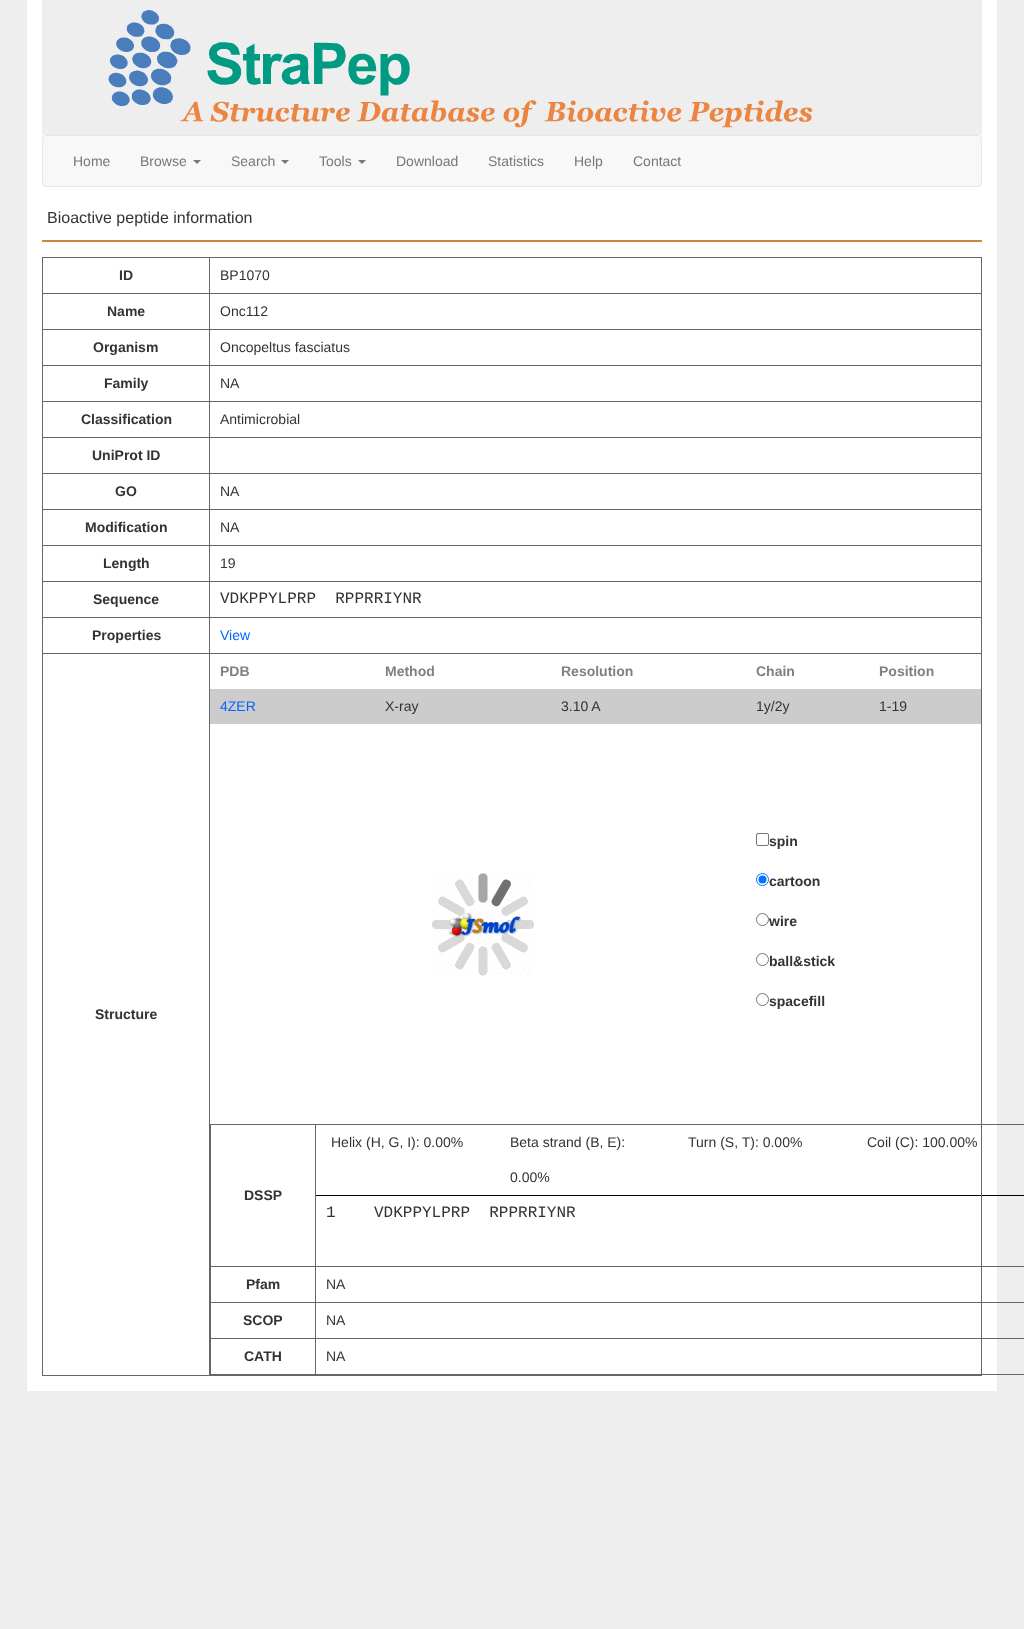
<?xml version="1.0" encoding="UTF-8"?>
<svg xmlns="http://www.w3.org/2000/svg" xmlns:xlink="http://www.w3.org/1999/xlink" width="1024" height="1629">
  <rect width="100%" height="100%" fill="#eeeeee" />
  <rect x="27" width="970" height="1391" fill="#ffffff" />
  <rect x="42" width="940" height="135" fill="#eeeeee" />
  <image x="108" y="10" width="705" height="118" xlink:href="image1.png" />
  <rect x="42.5" y="135.5" width="939" height="51" rx="3.5" fill="#f8f8f8" stroke="#e7e7e7" />
  <path d="M 193 160 h 8 l -4 4 z" fill="#777777" />
  <path d="M 281 160 h 8 l -4 4 z" fill="#777777" />
  <path d="M 358 160 h 8 l -4 4 z" fill="#777777" />
  <rect x="42" y="240" width="940" height="2" fill="#cd853f" />
  <rect x="42" y="257" width="940" height="1" fill="#666666" />
  <rect x="210" y="1124" width="814" height="1" fill="#666666" />
  <rect x="210" y="1374" width="814" height="1" fill="#666666" />
  <rect x="316" y="1195" width="708" height="1" fill="#000000" />
  <rect x="315" y="1266" width="709" height="1" fill="#666666" />
  <rect x="315" y="1302" width="709" height="1" fill="#666666" />
  <rect x="315" y="1338" width="709" height="1" fill="#666666" />
  <rect x="981" y="257" width="1" height="1119" fill="#666666" />
  <rect x="42" y="1375" width="940" height="1" fill="#666666" />
  <rect x="42" y="257" width="1" height="1119" fill="#666666" />
  <rect x="209" y="293" width="773" height="1" fill="#666666" />
  <rect x="209" y="329" width="773" height="1" fill="#666666" />
  <rect x="209" y="365" width="773" height="1" fill="#666666" />
  <rect x="209" y="401" width="773" height="1" fill="#666666" />
  <rect x="209" y="437" width="773" height="1" fill="#666666" />
  <rect x="209" y="473" width="773" height="1" fill="#666666" />
  <rect x="209" y="509" width="773" height="1" fill="#666666" />
  <rect x="209" y="545" width="773" height="1" fill="#666666" />
  <rect x="209" y="581" width="773" height="1" fill="#666666" />
  <rect x="209" y="617" width="773" height="1" fill="#666666" />
  <rect x="209" y="653" width="773" height="1" fill="#666666" />
  <rect x="209" y="653" width="1" height="723" fill="#666666" />
  <rect x="42" y="653" width="168" height="1" fill="#666666" />
  <rect x="209" y="617" width="1" height="37" fill="#666666" />
  <rect x="42" y="617" width="168" height="1" fill="#666666" />
  <rect x="209" y="581" width="1" height="37" fill="#666666" />
  <rect x="42" y="581" width="168" height="1" fill="#666666" />
  <rect x="209" y="545" width="1" height="37" fill="#666666" />
  <rect x="42" y="545" width="168" height="1" fill="#666666" />
  <rect x="209" y="509" width="1" height="37" fill="#666666" />
  <rect x="42" y="509" width="168" height="1" fill="#666666" />
  <rect x="209" y="473" width="1" height="37" fill="#666666" />
  <rect x="42" y="473" width="168" height="1" fill="#666666" />
  <rect x="209" y="437" width="1" height="37" fill="#666666" />
  <rect x="42" y="437" width="168" height="1" fill="#666666" />
  <rect x="209" y="401" width="1" height="37" fill="#666666" />
  <rect x="42" y="401" width="168" height="1" fill="#666666" />
  <rect x="209" y="365" width="1" height="37" fill="#666666" />
  <rect x="42" y="365" width="168" height="1" fill="#666666" />
  <rect x="209" y="329" width="1" height="37" fill="#666666" />
  <rect x="42" y="329" width="168" height="1" fill="#666666" />
  <rect x="209" y="293" width="1" height="37" fill="#666666" />
  <rect x="42" y="293" width="168" height="1" fill="#666666" />
  <rect x="209" y="257" width="1" height="37" fill="#666666" />
  <rect x="210" y="689" width="771" height="35" fill="#cccccc" />
  <image x="431" y="872" width="104" height="104" xlink:href="image2.png" />
  <rect x="756.5" y="833.5" width="12" height="12" rx="1.5" fill="none" stroke="#767676" />
  <circle cx="762.5" cy="879.5" r="6" fill="none" stroke="#0075ff" />
  <circle cx="762.5" cy="879.5" r="4" fill="#0075ff" />
  <circle cx="762.5" cy="919.5" r="6" fill="none" stroke="#767676" />
  <circle cx="762.5" cy="959.5" r="6" fill="none" stroke="#767676" />
  <circle cx="762.5" cy="999.5" r="6" fill="none" stroke="#767676" />
  <rect x="210" y="1124" width="1" height="251" fill="#666666" />
  <rect x="315" y="1338" width="1" height="37" fill="#666666" />
  <rect x="210" y="1338" width="106" height="1" fill="#666666" />
  <rect x="315" y="1302" width="1" height="37" fill="#666666" />
  <rect x="210" y="1302" width="106" height="1" fill="#666666" />
  <rect x="315" y="1266" width="1" height="37" fill="#666666" />
  <rect x="210" y="1266" width="106" height="1" fill="#666666" />
  <rect x="315" y="1124" width="1" height="143" fill="#666666" />
  <text x="73" y="166" style="font-family: Liberation Sans; font-size: 14px; fill: #777777">Home</text>
  <text x="140" y="166" style="font-family: Liberation Sans; font-size: 14px; fill: #777777">Browse</text>
  <text x="231" y="166" style="font-family: Liberation Sans; font-size: 14px; fill: #777777">Search</text>
  <text x="319" y="166" style="font-family: Liberation Sans; font-size: 14px; fill: #777777">Tools</text>
  <text x="396" y="166" style="font-family: Liberation Sans; font-size: 14px; fill: #777777">Download</text>
  <text x="488" y="166" style="font-family: Liberation Sans; font-size: 14px; fill: #777777">Statistics</text>
  <text x="574" y="166" style="font-family: Liberation Sans; font-size: 14px; fill: #777777">Help</text>
  <text x="633" y="166" style="font-family: Liberation Sans; font-size: 14px; fill: #777777">Contact</text>
  <text x="47" y="223" style="font-family: Liberation Sans; font-size: 16px; fill: #333333">Bioactive peptide information</text>
  <text x="119" y="280" style="font-family: Liberation Sans; font-size: 14px; font-weight: bold; fill: #333333">ID</text>
  <text x="220" y="280" style="font-family: Liberation Sans; font-size: 14px; fill: #333333">BP1070</text>
  <text x="107" y="316" style="font-family: Liberation Sans; font-size: 14px; font-weight: bold; fill: #333333">Name</text>
  <text x="220" y="316" style="font-family: Liberation Sans; font-size: 14px; fill: #333333">Onc112</text>
  <text x="93" y="352" style="font-family: Liberation Sans; font-size: 14px; font-weight: bold; fill: #333333">Organism</text>
  <text x="220" y="352" style="font-family: Liberation Sans; font-size: 14px; fill: #333333">Oncopeltus fasciatus</text>
  <text x="104" y="388" style="font-family: Liberation Sans; font-size: 14px; font-weight: bold; fill: #333333">Family</text>
  <text x="220" y="388" style="font-family: Liberation Sans; font-size: 14px; fill: #333333">NA</text>
  <text x="81" y="424" style="font-family: Liberation Sans; font-size: 14px; font-weight: bold; fill: #333333">Classification</text>
  <text x="220" y="424" style="font-family: Liberation Sans; font-size: 14px; fill: #333333">Antimicrobial</text>
  <text x="92" y="460" style="font-family: Liberation Sans; font-size: 14px; font-weight: bold; fill: #333333">UniProt ID</text>
  <text x="115" y="496" style="font-family: Liberation Sans; font-size: 14px; font-weight: bold; fill: #333333">GO</text>
  <text x="220" y="496" style="font-family: Liberation Sans; font-size: 14px; fill: #333333">NA</text>
  <text x="85" y="532" style="font-family: Liberation Sans; font-size: 14px; font-weight: bold; fill: #333333">Modification</text>
  <text x="220" y="532" style="font-family: Liberation Sans; font-size: 14px; fill: #333333">NA</text>
  <text x="103" y="568" style="font-family: Liberation Sans; font-size: 14px; font-weight: bold; fill: #333333">Length</text>
  <text x="220" y="568" style="font-family: Liberation Sans; font-size: 14px; fill: #333333">19</text>
  <text x="93" y="604" style="font-family: Liberation Sans; font-size: 14px; font-weight: bold; fill: #333333">Sequence</text>
  <text x="220" y="603" style="font-family: Liberation Mono; font-size: 16px; fill: #333333" xml:space="preserve">VDKPPYLPRP  RPPRRIYNR</text>
  <text x="92" y="640" style="font-family: Liberation Sans; font-size: 14px; font-weight: bold; fill: #333333">Properties</text>
  <text x="220" y="640" style="font-family: Liberation Sans; font-size: 14px; fill: #0066ff">View</text>
  <text x="95" y="1019" style="font-family: Liberation Sans; font-size: 14px; font-weight: bold; fill: #333333">Structure</text>
  <text x="220" y="676" style="font-family: Liberation Sans; font-size: 14px; font-weight: bold; fill: #808080">PDB</text>
  <text x="385" y="676" style="font-family: Liberation Sans; font-size: 14px; font-weight: bold; fill: #808080">Method</text>
  <text x="561" y="676" style="font-family: Liberation Sans; font-size: 14px; font-weight: bold; fill: #808080">Resolution</text>
  <text x="756" y="676" style="font-family: Liberation Sans; font-size: 14px; font-weight: bold; fill: #808080">Chain</text>
  <text x="879" y="676" style="font-family: Liberation Sans; font-size: 14px; font-weight: bold; fill: #808080">Position</text>
  <text x="220" y="711" style="font-family: Liberation Sans; font-size: 14px; fill: #0066ff">4ZER</text>
  <text x="385" y="711" style="font-family: Liberation Sans; font-size: 14px; fill: #333333">X-ray</text>
  <text x="561" y="711" style="font-family: Liberation Sans; font-size: 14px; fill: #333333">3.10 A</text>
  <text x="756" y="711" style="font-family: Liberation Sans; font-size: 14px; fill: #333333">1y/2y</text>
  <text x="879" y="711" style="font-family: Liberation Sans; font-size: 14px; fill: #333333">1-19</text>
  <text x="769" y="846" style="font-family: Liberation Sans; font-size: 14px; font-weight: bold; fill: #333333">spin</text>
  <text x="769" y="886" style="font-family: Liberation Sans; font-size: 14px; font-weight: bold; fill: #333333">cartoon</text>
  <text x="769" y="926" style="font-family: Liberation Sans; font-size: 14px; font-weight: bold; fill: #333333">wire</text>
  <text x="769" y="966" style="font-family: Liberation Sans; font-size: 14px; font-weight: bold; fill: #333333">ball&amp;stick</text>
  <text x="769" y="1006" style="font-family: Liberation Sans; font-size: 14px; font-weight: bold; fill: #333333">spacefill</text>
  <text x="244" y="1200" style="font-family: Liberation Sans; font-size: 14px; font-weight: bold; fill: #333333">DSSP</text>
  <text x="331" y="1147" style="font-family: Liberation Sans; font-size: 14px; fill: #333333">Helix (H, G, I): 0.00%</text>
  <text x="510" y="1147" style="font-family: Liberation Sans; font-size: 14px; fill: #333333">Beta strand (B, E):</text>
  <text x="510" y="1182" style="font-family: Liberation Sans; font-size: 14px; fill: #333333">0.00%</text>
  <text x="688" y="1147" style="font-family: Liberation Sans; font-size: 14px; fill: #333333">Turn (S, T): 0.00%</text>
  <text x="867" y="1147" style="font-family: Liberation Sans; font-size: 14px; fill: #333333">Coil (C): 100.00%</text>
  <text x="326" y="1217" style="font-family: Liberation Mono; font-size: 16px; fill: #333333" xml:space="preserve">1    VDKPPYLPRP  RPPRRIYNR</text>
  <text x="246" y="1289" style="font-family: Liberation Sans; font-size: 14px; font-weight: bold; fill: #333333">Pfam</text>
  <text x="326" y="1289" style="font-family: Liberation Sans; font-size: 14px; fill: #333333">NA</text>
  <text x="243" y="1325" style="font-family: Liberation Sans; font-size: 14px; font-weight: bold; fill: #333333">SCOP</text>
  <text x="326" y="1325" style="font-family: Liberation Sans; font-size: 14px; fill: #333333">NA</text>
  <text x="244" y="1361" style="font-family: Liberation Sans; font-size: 14px; font-weight: bold; fill: #333333">CATH</text>
  <text x="326" y="1361" style="font-family: Liberation Sans; font-size: 14px; fill: #333333">NA</text>
</svg>
